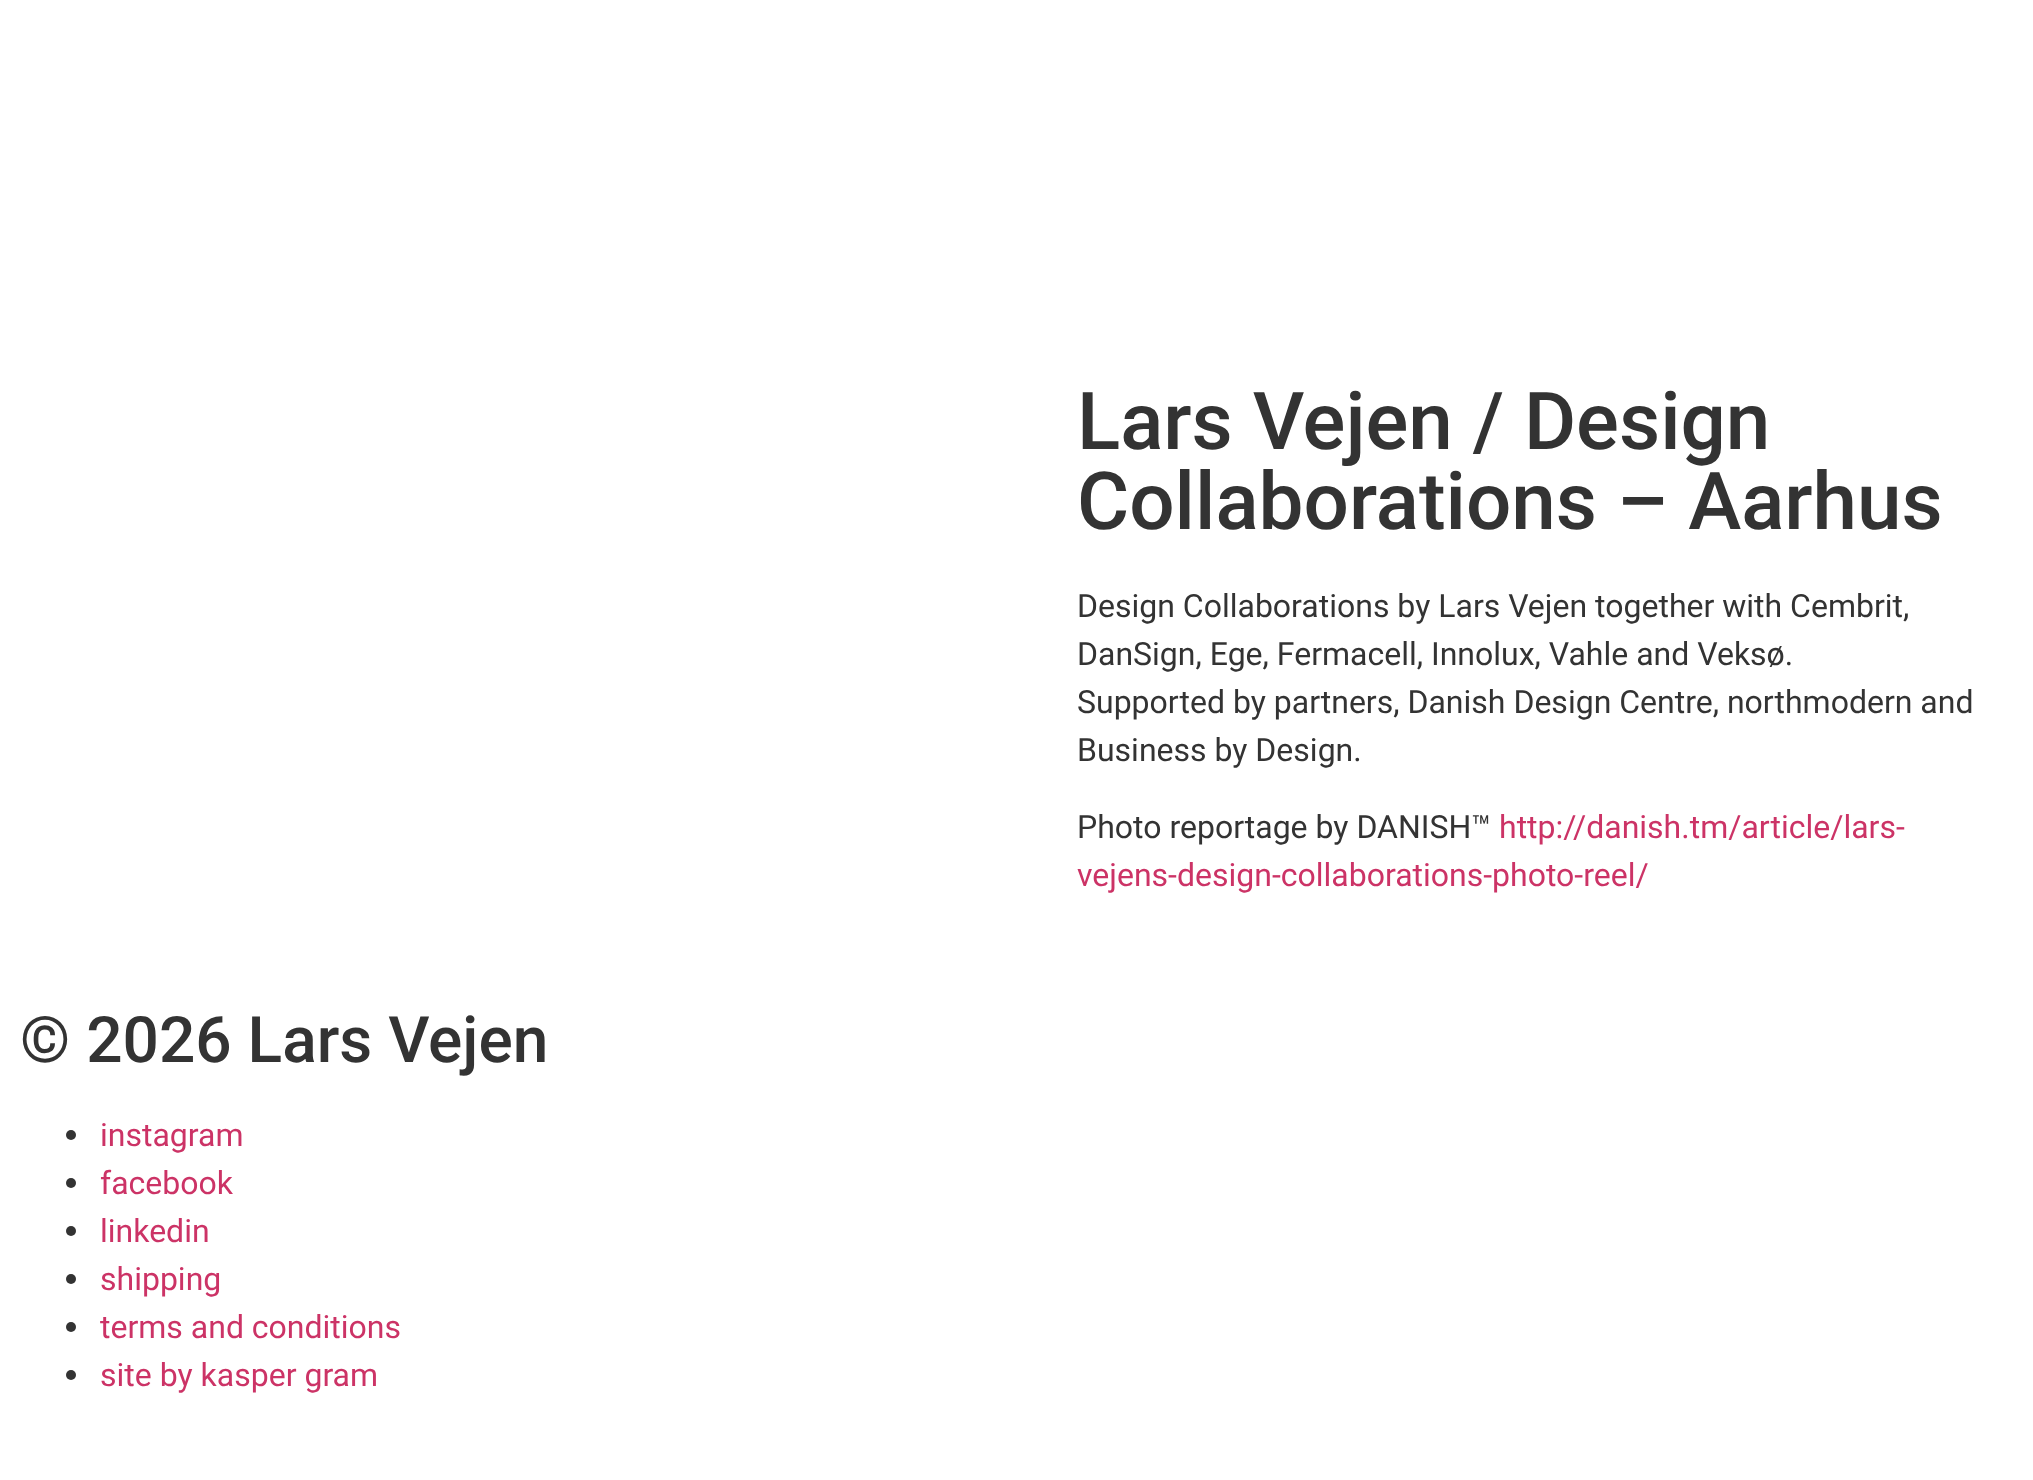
<?xml version="1.0" encoding="UTF-8"?>
<svg xmlns="http://www.w3.org/2000/svg" xmlns:xlink="http://www.w3.org/1999/xlink" width="2033" height="1480">
  <rect width="100%" height="100%" fill="#ffffff" />
  <circle cx="71" cy="1135" r="5" fill="#333333" />
  <circle cx="71" cy="1183" r="5" fill="#333333" />
  <circle cx="71" cy="1231" r="5" fill="#333333" />
  <circle cx="71" cy="1279" r="5" fill="#333333" />
  <circle cx="71" cy="1327" r="5" fill="#333333" />
  <circle cx="71" cy="1375" r="5" fill="#333333" />
  <text x="1077" y="449" style="font-family: Roboto; font-size: 80px; font-weight: 500; fill: #333333">Lars Vejen / Design</text>
  <text x="1077" y="529" style="font-family: Roboto; font-size: 80px; font-weight: 500; fill: #333333">Collaborations – Aarhus</text>
  <text x="1077" y="617" style="font-family: Roboto; font-size: 32px; fill: #333333">Design Collaborations by Lars Vejen together with Cembrit,</text>
  <text x="1077" y="665" style="font-family: Roboto; font-size: 32px; fill: #333333">DanSign, Ege, Fermacell, Innolux, Vahle and Veksø.</text>
  <text x="1077" y="713" style="font-family: Roboto; font-size: 32px; fill: #333333">Supported by partners, Danish Design Centre, northmodern and</text>
  <text x="1077" y="761" style="font-family: Roboto; font-size: 32px; fill: #333333">Business by Design.</text>
  <text x="1077" y="838" style="font-family: Roboto; font-size: 32px; fill: #333333">Photo reportage by DANISH™</text>
  <text x="1499" y="838" style="font-family: Roboto; font-size: 32px; fill: #cc3366">http://danish.tm/article/lars-</text>
  <text x="1077" y="886" style="font-family: Roboto; font-size: 32px; fill: #cc3366">vejens-design-collaborations-photo-reel/</text>
  <text x="20" y="1062" style="font-family: Roboto; font-size: 64px; font-weight: 500; fill: #333333">© 2026 Lars Vejen</text>
  <text x="100" y="1146" style="font-family: Roboto; font-size: 32px; fill: #cc3366">instagram</text>
  <text x="100" y="1194" style="font-family: Roboto; font-size: 32px; fill: #cc3366">facebook</text>
  <text x="100" y="1242" style="font-family: Roboto; font-size: 32px; fill: #cc3366">linkedin</text>
  <text x="100" y="1290" style="font-family: Roboto; font-size: 32px; fill: #cc3366">shipping</text>
  <text x="100" y="1338" style="font-family: Roboto; font-size: 32px; fill: #cc3366">terms and conditions</text>
  <text x="100" y="1386" style="font-family: Roboto; font-size: 32px; fill: #cc3366">site by kasper gram</text>
</svg>
